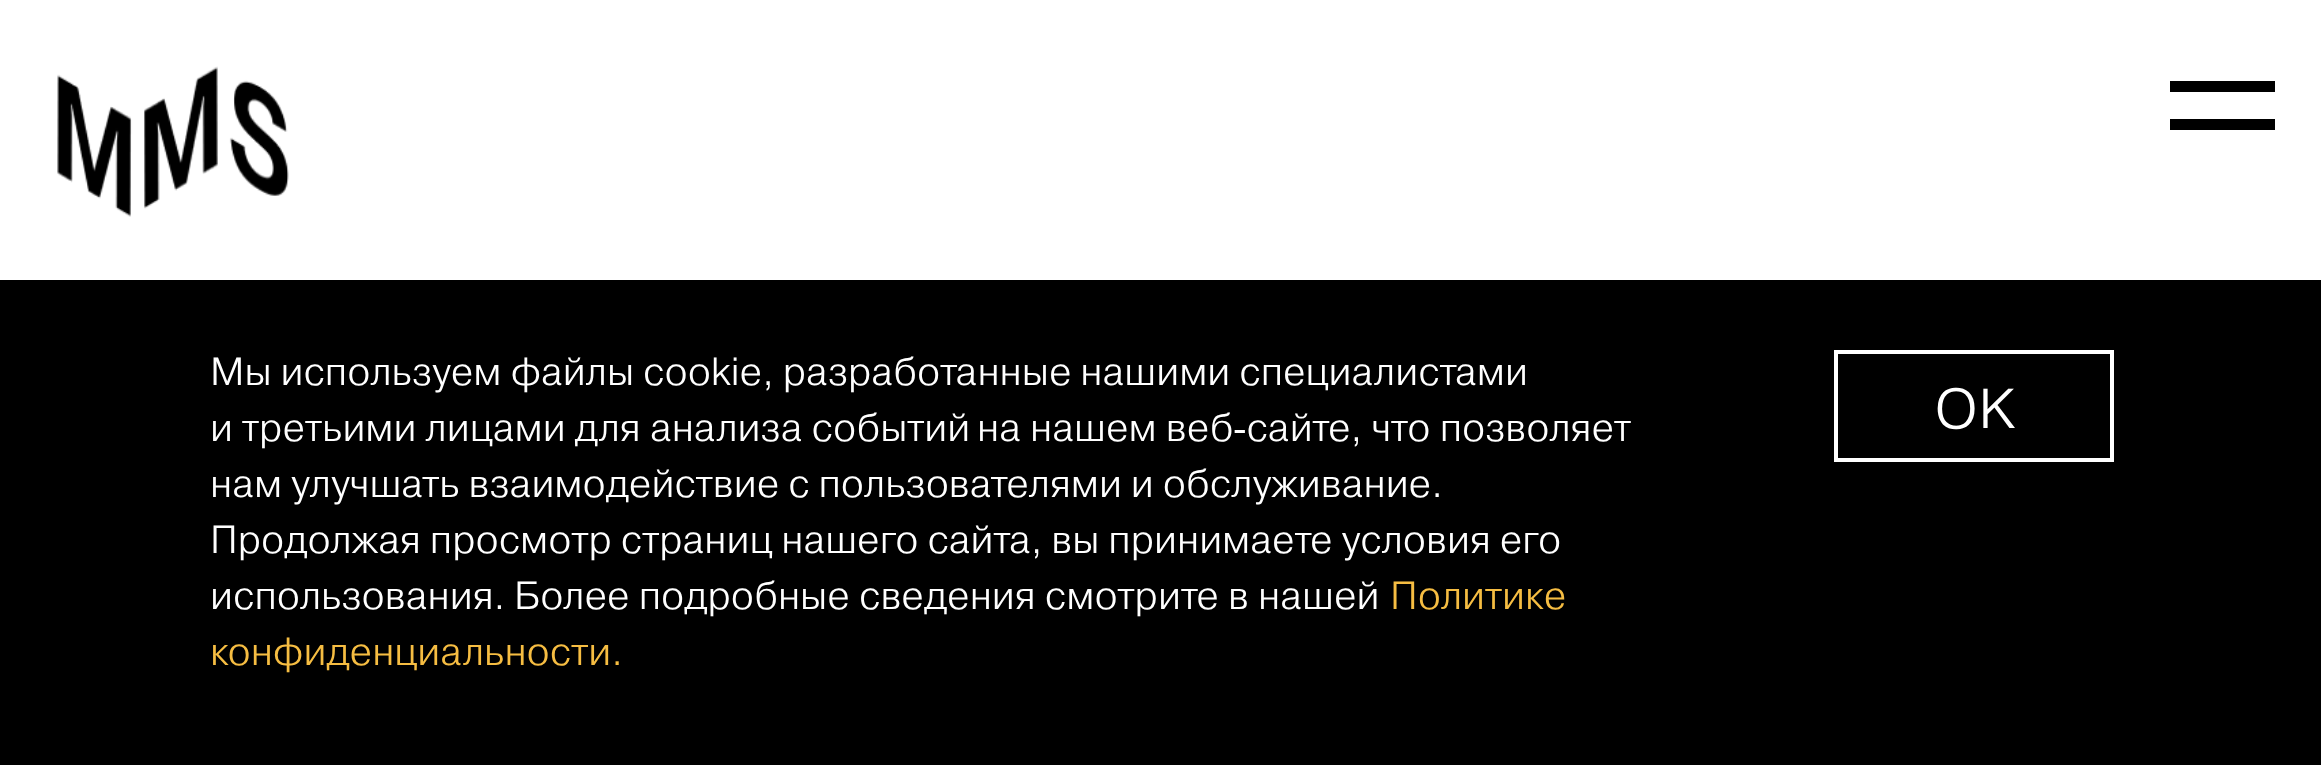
<?xml version="1.0" encoding="UTF-8"?>
<svg xmlns="http://www.w3.org/2000/svg" xmlns:xlink="http://www.w3.org/1999/xlink" width="2321" height="765">
  <rect width="100%" height="100%" fill="#000000" />
  <rect width="2321" height="280" fill="#ffffff" />
  <image x="57" y="66" width="232" height="151" xlink:href="image1.png" />
  <rect x="2170" y="81" width="105" height="11" fill="#000000" />
  <rect x="2170" y="119" width="105" height="11" fill="#000000" />
  <rect x="1836" y="352" width="276" height="108" fill="none" stroke="#ffffff" stroke-width="4" />
  <text x="210" y="385" word-spacing="-0.25" style="font-family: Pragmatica; font-size: 39.2px; font-weight: 300; fill: #ffffff">Мы используем файлы cookie, разработанные нашими специалистами</text>
  <text x="210" y="441" style="font-family: Pragmatica; font-size: 39.2px; font-weight: 300; fill: #ffffff">и третьими лицами для анализа событий</text>
  <text x="977" y="441" style="font-family: Pragmatica; font-size: 39.2px; font-weight: 300; fill: #ffffff">на нашем веб‑сайте, что позволяет</text>
  <text x="210" y="497" word-spacing="-0.25" style="font-family: Pragmatica; font-size: 39.2px; font-weight: 300; fill: #ffffff">нам улучшать взаимодействие с пользователями и обслуживание.</text>
  <text x="210" y="553" word-spacing="-0.25" style="font-family: Pragmatica; font-size: 39.2px; font-weight: 300; fill: #ffffff">Продолжая просмотр страниц нашего сайта, вы принимаете условия его</text>
  <text x="210" y="609" style="font-family: Pragmatica; font-size: 39.2px; font-weight: 300; fill: #ffffff">использования.</text>
  <text x="514" y="609" style="font-family: Pragmatica; font-size: 39.2px; font-weight: 300; fill: #ffffff">Более подробные сведения смотрите в нашей</text>
  <text x="1390" y="609" style="font-family: Pragmatica; font-size: 39.2px; font-weight: 300; fill: #f6bd42">Политике</text>
  <text x="210" y="665" style="font-family: Pragmatica; font-size: 39.2px; font-weight: 300; fill: #f6bd42">конфиденциальности.</text>
  <text x="1934" y="428" style="font-family: Pragmatica; font-size: 56px; font-weight: 300; fill: #ffffff">OK</text>
</svg>
